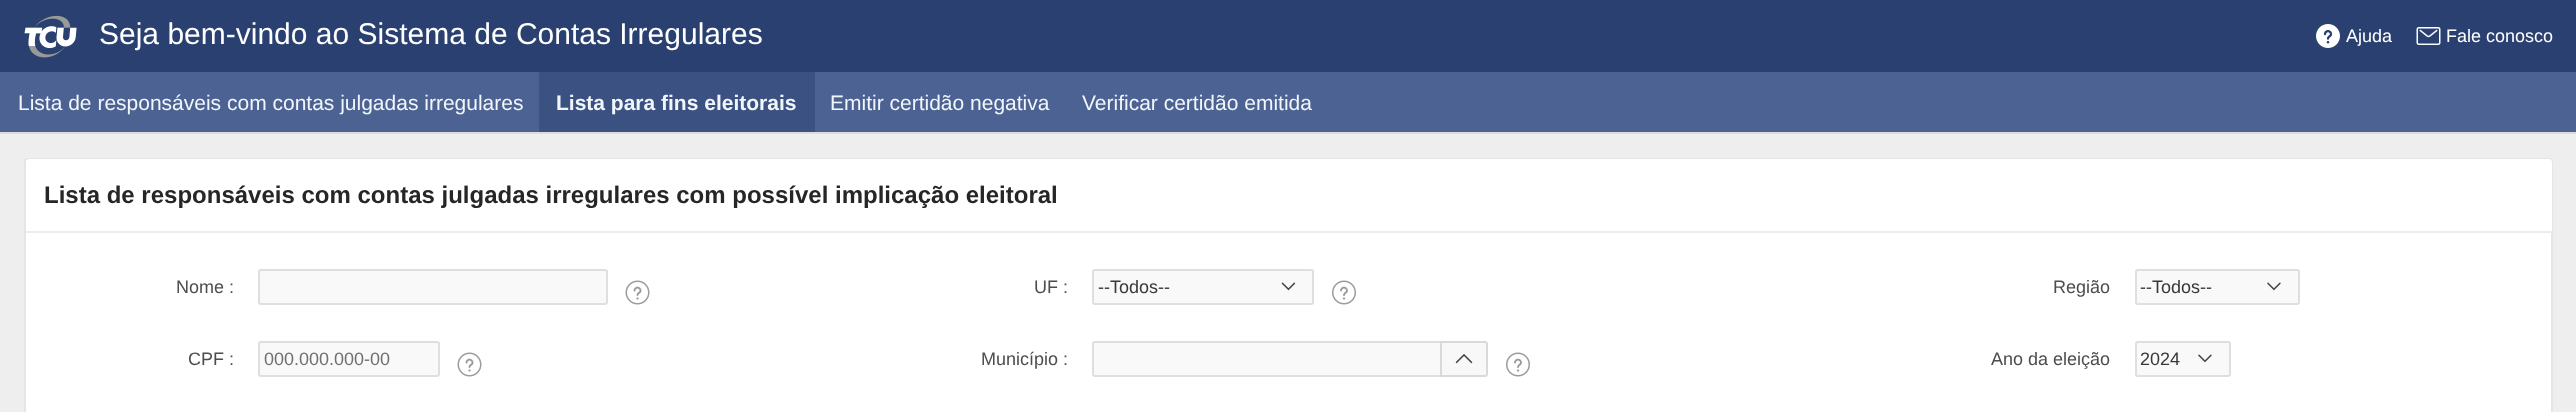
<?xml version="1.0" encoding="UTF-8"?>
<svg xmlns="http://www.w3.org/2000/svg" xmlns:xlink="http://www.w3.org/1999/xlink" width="2576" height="412">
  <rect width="100%" height="100%" fill="#eeeeee" />
  <rect width="2576" height="72" fill="#2a4070" />
  <image x="24" y="15" width="53" height="43" xlink:href="image1.png" />
  <image x="2316" y="24" width="24" height="24" xlink:href="image2.png" />
  <image x="2416" y="27" width="25" height="18" xlink:href="image3.png" />
  <rect y="72" width="2576" height="60" fill="#4c6292" />
  <rect x="539" y="72" width="276" height="60" fill="#3b5181" />
  <rect y="132" width="2576" height="2" fill="#dcdcdc" />
  <rect x="24" y="158" width="2529" height="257" rx="3" fill="#ffffff" />
  <rect x="25" y="159" width="2527" height="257" rx="2" fill="none" stroke="#000000" stroke-opacity="0.1" stroke-width="2" />
  <path d="M 29 159 h 2520 c 1.5 0 3 1.5 3 3 v 71 h -2526 v -71 c 0 -1.5 1.5 -3 3 -3 z" fill="#ffffff" />
  <rect x="26" y="231" width="2526" height="2" fill="#ececec" />
  <rect x="259" y="270" width="348" height="34" rx="2" fill="#f9f9f9" stroke="#dfdfdf" stroke-width="2" />
  <image x="625" y="280" width="25" height="25" xlink:href="image4.png" />
  <rect x="1092" y="269" width="222" height="36" rx="3" fill="#f9f9f9" />
  <image x="1281" y="282" width="15" height="9" xlink:href="image5.png" />
  <rect x="1093" y="270" width="220" height="34" rx="2" fill="none" stroke="#dfdfdf" stroke-width="2" />
  <image x="1332" y="280" width="24" height="25" xlink:href="image6.png" />
  <rect x="2135" y="269" width="165" height="36" rx="3" fill="#f9f9f9" />
  <image x="2267" y="282" width="14" height="9" xlink:href="image7.png" />
  <rect x="2136" y="270" width="163" height="34" rx="2" fill="none" stroke="#dfdfdf" stroke-width="2" />
  <rect x="259" y="342" width="180" height="34" rx="2" fill="#f9f9f9" stroke="#dfdfdf" stroke-width="2" />
  <image x="457" y="352" width="25" height="25" xlink:href="image4.png" />
  <path d="M 1095 342 h 346 v 34 h -346 c -1 0 -2 -1 -2 -2 v -30 c 0 -1 1 -2 2 -2 z" fill="#f9f9f9" stroke="#dfdfdf" stroke-width="2" />
  <path d="M 1440 341 h 45 c 1.5 0 3 1.5 3 3 v 30 c 0 1.5 -1.5 3 -3 3 h -45 z" fill="#f8f8f8" />
  <path d="M 1441 342 h 44 c 1 0 2 1 2 2 v 30 c 0 1 -1 2 -2 2 h -44 z" fill="none" stroke="#000000" stroke-opacity="0.12" stroke-width="2" />
  <image x="1455" y="354" width="18" height="10" xlink:href="image8.png" />
  <image x="1506" y="352" width="24" height="25" xlink:href="image6.png" />
  <rect x="2135" y="341" width="96" height="36" rx="3" fill="#f9f9f9" />
  <image x="2198" y="354" width="14" height="9" xlink:href="image7.png" />
  <rect x="2136" y="342" width="94" height="34" rx="2" fill="none" stroke="#dfdfdf" stroke-width="2" />
  <text x="99" y="44" style="font-family: Liberation Sans; font-size: 30px; fill: #ffffff">Seja bem-vindo ao Sistema de Contas Irregulares</text>
  <text x="2346" y="42" style="font-family: Liberation Sans; font-size: 18px; fill: #ffffff">Ajuda</text>
  <text x="2446" y="42" style="font-family: Liberation Sans; font-size: 18px; fill: #ffffff">Fale conosco</text>
  <text x="18" y="110" style="font-family: Liberation Sans; font-size: 21px; fill: #f1f6fa">Lista de responsáveis com contas julgadas irregulares</text>
  <text x="556" y="110" style="font-family: Liberation Sans; font-size: 21px; font-weight: bold; fill: #f1f6fa">Lista para fins eleitorais</text>
  <text x="830" y="110" style="font-family: Liberation Sans; font-size: 21px; fill: #f1f6fa">Emitir certidão negativa</text>
  <text x="1082" y="110" style="font-family: Liberation Sans; font-size: 21px; fill: #f1f6fa">Verificar certidão emitida</text>
  <text x="44" y="203" style="font-family: Liberation Sans; font-size: 24px; font-weight: bold; fill: #262626">Lista de responsáveis com contas julgadas irregulares com possível implicação eleitoral</text>
  <text x="176" y="293" style="font-family: Liberation Sans; font-size: 18px; fill: #4d4d4d">Nome :</text>
  <text x="1034" y="293" style="font-family: Liberation Sans; font-size: 18px; fill: #4d4d4d">UF :</text>
  <text x="1098" y="293" style="font-family: Liberation Sans; font-size: 18px; fill: #393939">--Todos--</text>
  <text x="2053" y="293" style="font-family: Liberation Sans; font-size: 18px; fill: #4d4d4d">Região</text>
  <text x="2140" y="293" style="font-family: Liberation Sans; font-size: 18px; fill: #393939">--Todos--</text>
  <text x="188" y="365" style="font-family: Liberation Sans; font-size: 18px; fill: #4d4d4d">CPF :</text>
  <text x="264" y="365" style="font-family: Liberation Sans; font-size: 18px; fill: #707070">000.000.000-00</text>
  <text x="981" y="365" style="font-family: Liberation Sans; font-size: 18px; fill: #4d4d4d">Município :</text>
  <text x="1991" y="365" style="font-family: Liberation Sans; font-size: 18px; fill: #4d4d4d">Ano da eleição</text>
  <text x="2140" y="365" style="font-family: Liberation Sans; font-size: 18px; fill: #393939">2024</text>
</svg>
